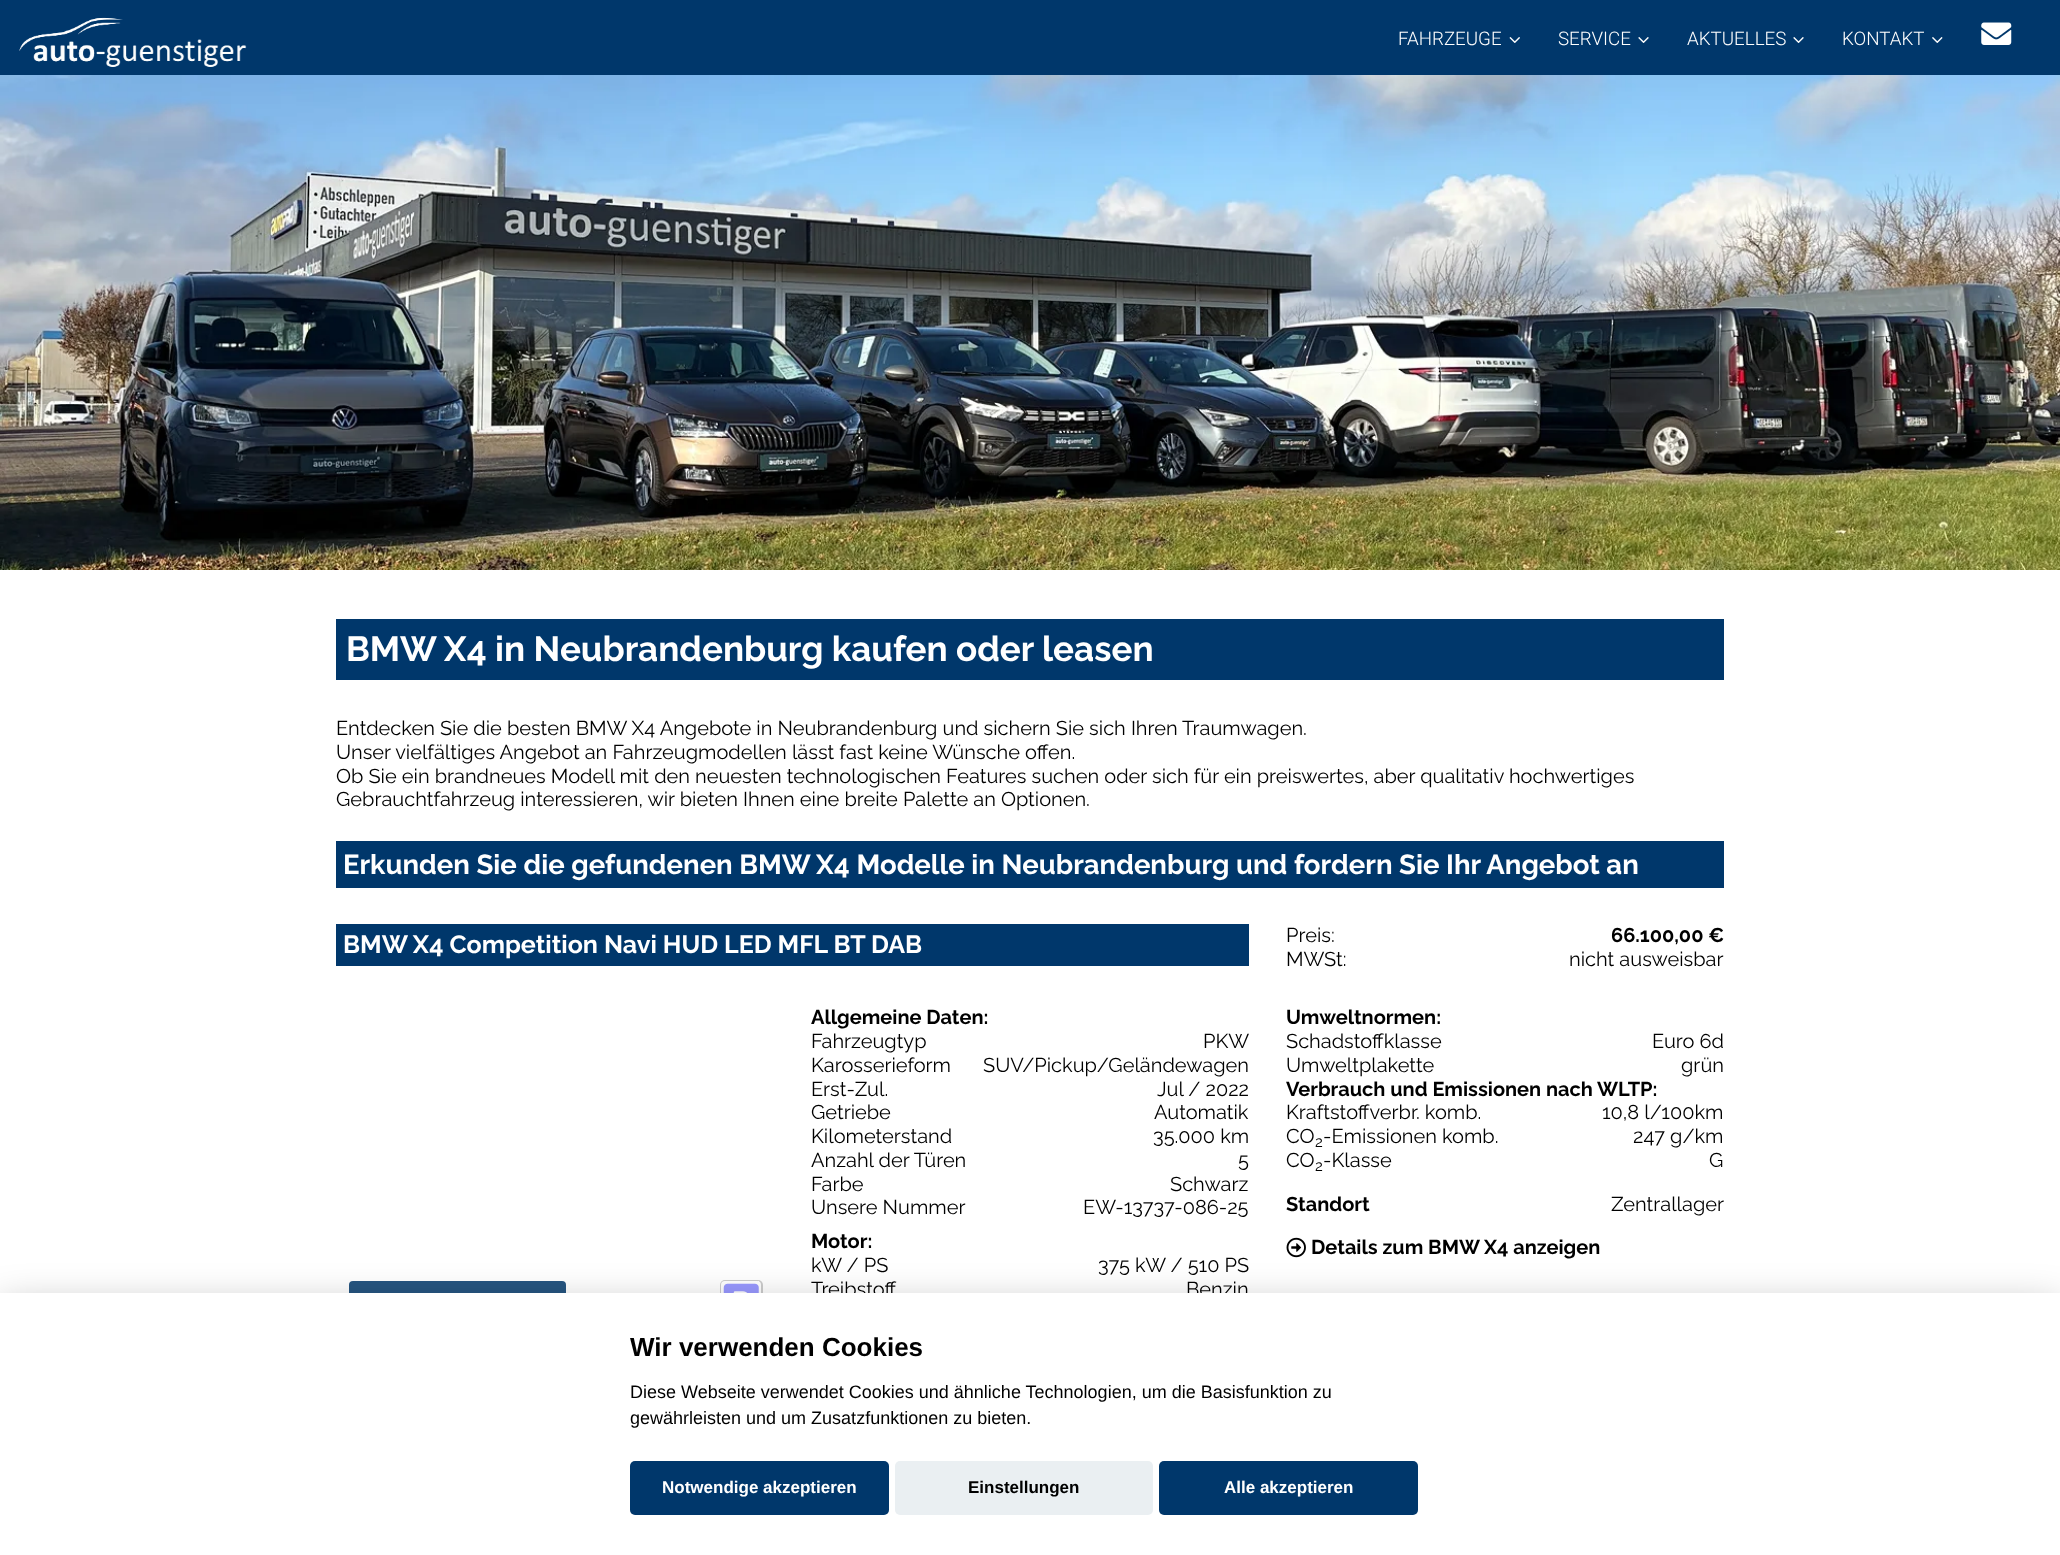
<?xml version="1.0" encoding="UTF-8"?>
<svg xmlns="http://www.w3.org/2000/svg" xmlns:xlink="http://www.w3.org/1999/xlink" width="2060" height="1555">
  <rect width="100%" height="100%" fill="#ffffff" />
  <rect width="2060" height="75" fill="#00376b" />
  <image x="19" y="17" width="228" height="50" xlink:href="image1.png" />
  <image x="1509" y="37" width="11" height="6" xlink:href="image2.png" />
  <image x="1638" y="37" width="11" height="6" xlink:href="image3.png" />
  <image x="1793" y="37" width="11" height="6" xlink:href="image3.png" />
  <image x="1932" y="37" width="11" height="6" xlink:href="image4.png" />
  <image x="1981" y="22" width="31" height="23" xlink:href="image5.png" />
  <image x="0" y="75" width="2060" height="495" xlink:href="image6.png" />
  <rect x="336" y="619" width="1388" height="61" fill="#00376b" />
  <rect x="336" y="841" width="1388" height="47" fill="#00376b" />
  <rect x="336" y="924" width="913" height="42" fill="#00376b" />
  <image x="1286" y="1237" width="20" height="21" xlink:href="image7.png" />
  <rect x="349" y="1281" width="217" height="40" rx="4" fill="#265581" />
  <rect x="720" y="1280" width="43" height="43" rx="5" fill="#999999" fill-opacity="0.5" filter="blur(0.5px)" />
  <rect x="721" y="1281" width="40" height="40" rx="4" fill="#ffffff" />
  <rect x="758" y="1281" width="1" height="1" fill="#ffffff" />
  <image x="723" y="1283" width="36" height="10" xlink:href="image8.png" />
  <rect y="1305" width="2060" height="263" fill="#020203" fill-opacity="0.28" filter="blur(19px)" />
  <text x="1398" y="45" style="font-family: Roboto; font-size: 18.75px; font-weight: 300; fill: #ffffff">FAHRZEUGE</text>
  <text x="1558" y="45" style="font-family: Roboto; font-size: 18.75px; font-weight: 300; fill: #ffffff">SERVICE</text>
  <text x="1687" y="45" style="font-family: Roboto; font-size: 18.75px; font-weight: 300; fill: #ffffff">AKTUELLES</text>
  <text x="1842" y="45" style="font-family: Roboto; font-size: 18.75px; font-weight: 300; fill: #ffffff">KONTAKT</text>
  <text x="346" y="661" style="font-family: Raleway; font-size: 35px; font-weight: bold; fill: #ffffff">BMW X4 in Neubrandenburg kaufen oder leasen</text>
  <text x="336" y="735" style="font-family: Raleway; font-size: 20px; fill: #000000">Entdecken Sie die besten BMW X4 Angebote in Neubrandenburg und sichern Sie sich Ihren Traumwagen.</text>
  <text x="336" y="759" style="font-family: Raleway; font-size: 20px; fill: #000000">Unser vielfältiges Angebot an Fahrzeugmodellen lässt fast keine Wünsche offen.</text>
  <text x="336" y="783" style="font-family: Raleway; font-size: 20px; fill: #000000">Ob Sie ein brandneues Modell mit den neuesten technologischen Features suchen oder sich für ein preiswertes, aber qualitativ hochwertiges</text>
  <text x="336" y="806" style="font-family: Raleway; font-size: 20px; fill: #000000">Gebrauchtfahrzeug interessieren, wir bieten Ihnen eine breite Palette an Optionen.</text>
  <text x="343" y="874" style="font-family: Raleway; font-size: 27.5px; font-weight: bold; fill: #ffffff">Erkunden Sie die gefundenen BMW X4 Modelle in Neubrandenburg und fordern Sie Ihr Angebot an</text>
  <text x="343" y="953" style="font-family: Raleway; font-size: 25px; font-weight: bold; fill: #ffffff">BMW X4 Competition Navi HUD LED MFL BT DAB</text>
  <text x="1286" y="942" style="font-family: Raleway; font-size: 20px; fill: #000000">Preis:</text>
  <text x="1611" y="942" style="font-family: Raleway; font-size: 20px; font-weight: bold; fill: #000000">66.100,00 €</text>
  <text x="1286" y="966" style="font-family: Raleway; font-size: 20px; fill: #000000">MWSt:</text>
  <text x="1569" y="966" style="font-family: Raleway; font-size: 20px; fill: #000000">nicht ausweisbar</text>
  <text x="811" y="1024" style="font-family: Raleway; font-size: 20px; font-weight: bold; fill: #000000">Allgemeine Daten:</text>
  <text x="811" y="1048" style="font-family: Raleway; font-size: 20px; fill: #000000">Fahrzeugtyp</text>
  <text x="1203" y="1048" style="font-family: Raleway; font-size: 20px; fill: #000000">PKW</text>
  <text x="811" y="1072" style="font-family: Raleway; font-size: 20px; fill: #000000">Karosserieform</text>
  <text x="983" y="1072" style="font-family: Raleway; font-size: 20px; fill: #000000">SUV/Pickup/Geländewagen</text>
  <text x="811" y="1096" style="font-family: Raleway; font-size: 20px; fill: #000000">Erst-Zul.</text>
  <text x="1157" y="1096" style="font-family: Raleway; font-size: 20px; fill: #000000">Jul / 2022</text>
  <text x="811" y="1119" style="font-family: Raleway; font-size: 20px; fill: #000000">Getriebe</text>
  <text x="1154" y="1119" style="font-family: Raleway; font-size: 20px; fill: #000000">Automatik</text>
  <text x="811" y="1143" style="font-family: Raleway; font-size: 20px; fill: #000000">Kilometerstand</text>
  <text x="1153" y="1143" style="font-family: Raleway; font-size: 20px; fill: #000000">35.000 km</text>
  <text x="811" y="1167" style="font-family: Raleway; font-size: 20px; fill: #000000">Anzahl der Türen</text>
  <text x="1238" y="1167" style="font-family: Raleway; font-size: 20px; fill: #000000">5</text>
  <text x="811" y="1191" style="font-family: Raleway; font-size: 20px; fill: #000000">Farbe</text>
  <text x="1170" y="1191" style="font-family: Raleway; font-size: 20px; fill: #000000">Schwarz</text>
  <text x="811" y="1214" style="font-family: Raleway; font-size: 20px; fill: #000000">Unsere Nummer</text>
  <text x="1083" y="1214" style="font-family: Raleway; font-size: 20px; fill: #000000">EW-13737-086-25</text>
  <text x="811" y="1248" style="font-family: Raleway; font-size: 20px; font-weight: bold; fill: #000000">Motor:</text>
  <text x="811" y="1272" style="font-family: Raleway; font-size: 20px; fill: #000000">kW / PS</text>
  <text x="1098" y="1272" style="font-family: Raleway; font-size: 20px; fill: #000000">375 kW / 510 PS</text>
  <text x="811" y="1296" style="font-family: Raleway; font-size: 20px; fill: #000000">Treibstoff</text>
  <text x="1186" y="1296" style="font-family: Raleway; font-size: 20px; fill: #000000">Benzin</text>
  <text x="1286" y="1024" style="font-family: Raleway; font-size: 20px; font-weight: bold; fill: #000000">Umweltnormen:</text>
  <text x="1286" y="1048" style="font-family: Raleway; font-size: 20px; fill: #000000">Schadstoffklasse</text>
  <text x="1652" y="1048" style="font-family: Raleway; font-size: 20px; fill: #000000">Euro 6d</text>
  <text x="1286" y="1072" style="font-family: Raleway; font-size: 20px; fill: #000000">Umweltplakette</text>
  <text x="1681" y="1072" style="font-family: Raleway; font-size: 20px; fill: #000000">grün</text>
  <text x="1286" y="1096" style="font-family: Raleway; font-size: 20px; font-weight: bold; fill: #000000">Verbrauch und Emissionen nach WLTP:</text>
  <text x="1286" y="1119" style="font-family: Raleway; font-size: 20px; fill: #000000">Kraftstoffverbr. komb.</text>
  <text x="1602" y="1119" style="font-family: Raleway; font-size: 20px; fill: #000000">10,8 l/100km</text>
  <text x="1286" y="1143" style="font-family: Raleway; font-size: 20px; fill: #000000">CO</text>
  <text x="1315" y="1147" style="font-family: Raleway; font-size: 15px; fill: #000000">2</text>
  <text x="1323" y="1143" style="font-family: Raleway; font-size: 20px; fill: #000000">-Emissionen komb.</text>
  <text x="1633" y="1143" style="font-family: Raleway; font-size: 20px; fill: #000000">247 g/km</text>
  <text x="1286" y="1167" style="font-family: Raleway; font-size: 20px; fill: #000000">CO</text>
  <text x="1315" y="1171" style="font-family: Raleway; font-size: 15px; fill: #000000">2</text>
  <text x="1323" y="1167" style="font-family: Raleway; font-size: 20px; fill: #000000">-Klasse</text>
  <text x="1709" y="1167" style="font-family: Raleway; font-size: 20px; fill: #000000">G</text>
  <text x="1286" y="1211" style="font-family: Raleway; font-size: 20px; font-weight: bold; fill: #000000">Standort</text>
  <text x="1611" y="1211" style="font-family: Raleway; font-size: 20px; fill: #000000">Zentrallager</text>
  <text x="1311" y="1254" style="font-family: Raleway; font-size: 20px; font-weight: bold; fill: #000000">Details zum BMW X4 anzeigen</text>
  <rect y="1293" width="2060" height="262" fill="#ffffff" />
  <text x="630" y="1356" style="font-family: Liberation Sans; font-size: 26px; font-weight: bold; fill: #000000">Wir verwenden Cookies</text>
  <text x="630" y="1398" style="font-family: Liberation Sans; font-size: 18px; fill: #000000">Diese Webseite verwendet Cookies und ähnliche Technologien, um die Basisfunktion zu</text>
  <text x="630" y="1424" style="font-family: Liberation Sans; font-size: 18px; fill: #000000">gewährleisten und um Zusatzfunktionen zu bieten.</text>
  <rect x="630" y="1461" width="259" height="54" rx="5" fill="#00376b" />
  <text x="662" y="1493" style="font-family: Liberation Sans; font-size: 17px; font-weight: bold; fill: #ffffff">Notwendige akzeptieren</text>
  <rect x="895" y="1461" width="258" height="54" rx="5" fill="#eaeff2" />
  <text x="968" y="1493" style="font-family: Liberation Sans; font-size: 17px; font-weight: bold; fill: #000000">Einstellungen</text>
  <rect x="1159" y="1461" width="259" height="54" rx="5" fill="#00376b" />
  <text x="1224" y="1493" style="font-family: Liberation Sans; font-size: 17px; font-weight: bold; fill: #ffffff">Alle akzeptieren</text>
</svg>
